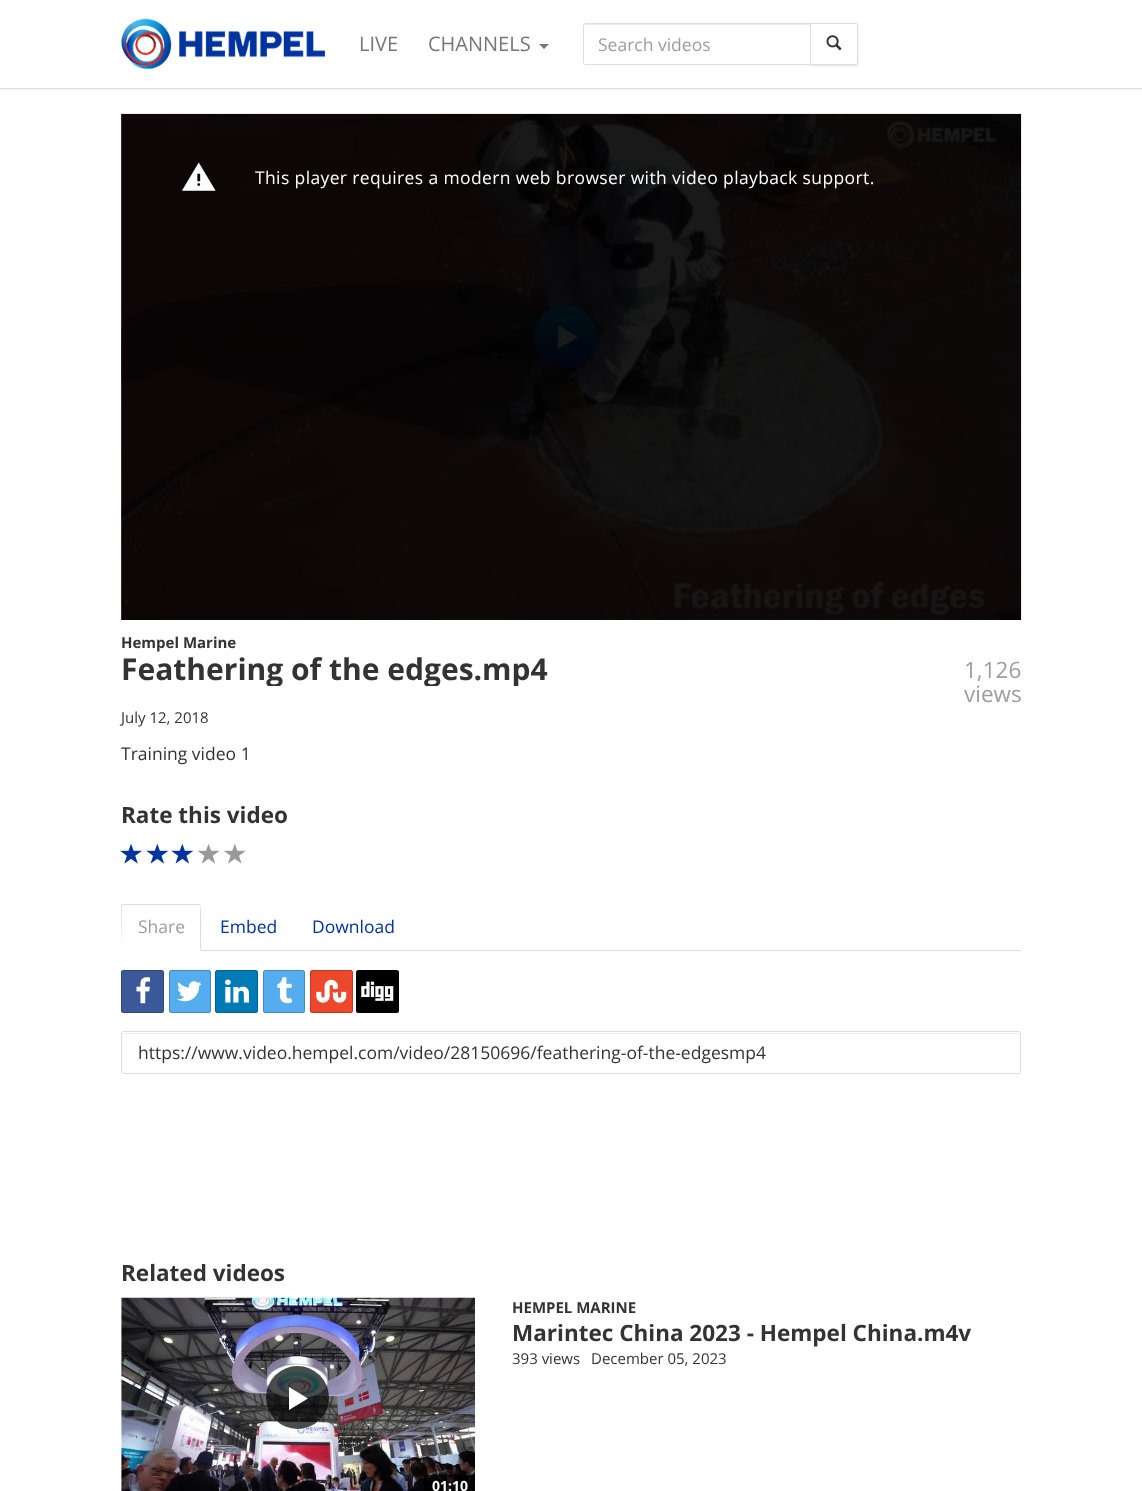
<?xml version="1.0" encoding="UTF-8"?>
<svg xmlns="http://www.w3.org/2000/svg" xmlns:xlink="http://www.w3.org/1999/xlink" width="1142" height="1491">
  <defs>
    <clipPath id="clip1"><rect x="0" y="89" width="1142" height="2" /></clipPath>
    <clipPath id="clip2"><rect x="121" y="653" width="744" height="33" /></clipPath>
  </defs>
  <rect width="100%" height="100%" fill="#ffffff" />
  <g clip-path="url(#clip1)">
    <rect width="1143" height="89" fill="#dddddd" filter="blur(1px)" />
  </g>
  <rect y="88" width="1142" height="1" fill="#dddddd" />
  <image x="121" y="18" width="204" height="51" xlink:href="image1.png" />
  <path d="M 539 44 h 10 l -5 5 z" fill="#777777" />
  <rect x="810" y="24" width="48" height="42" rx="2.5" fill="#dddddd" filter="blur(1px)" />
  <path d="M 810.5 23.5 h 45 c 1 0 2 1 2 2 v 37 c 0 1 -1 2 -2 2 h -45 z" fill="#ffffff" stroke="#dddddd" />
  <path d="M 585.5 23 h 225.5 v 42 h -225.5 c -1.5 0 -2.5 -1 -2.5 -2.5 v -37 c 0 -1.5 1 -2.5 2.5 -2.5 z" fill="#ffffff" />
  <path d="M 585 24 l -1 1 h 226 v -1 z" fill="#ececec" />
  <path d="M 585.5 23.5 h 225 v 41 h -225 c -1 0 -2 -1 -2 -2 v -37 c 0 -1 1 -2 2 -2 z" fill="none" stroke="#dddddd" />
  <image x="826" y="35" width="16" height="16" xlink:href="image2.png" />
  <image x="121" y="113" width="901" height="507" xlink:href="image3.png" />
  <image x="120" y="843" width="22" height="21" xlink:href="image4.png" />
  <image x="146" y="843" width="23" height="21" xlink:href="image5.png" />
  <image x="171" y="843" width="23" height="21" xlink:href="image5.png" />
  <image x="197" y="844" width="23" height="20" xlink:href="image6.png" />
  <image x="224" y="844" width="22" height="20" xlink:href="image7.png" />
  <rect x="201" y="950" width="820" height="1" fill="#dddddd" />
  <path d="M 124 904 h -2 l 1 1 h 76 l 1 1 v -1 l -1 -1 z" fill="#dddddd" />
  <path d="M 201 951 c 0 -5 1 -45 -1 -46 v 1 v 44 z" fill="#dddddd" />
  <path d="M 121 905 l 1 -1 l 1 1 l -1 1 v 44 v 1 z" fill="#dddddd" />
  <rect x="121" y="970" width="43" height="43" rx="2.5" fill="#3b5998" />
  <rect x="121.5" y="970.5" width="42" height="42" rx="2" fill="none" stroke="#000000" stroke-opacity="0.2" />
  <image x="136" y="977" width="14" height="27" xlink:href="image8.png" />
  <rect x="169" y="970" width="42" height="43" rx="2.5" fill="#55acee" />
  <rect x="169.5" y="970.5" width="41" height="42" rx="2" fill="none" stroke="#000000" stroke-opacity="0.2" />
  <image x="177" y="981" width="25" height="21" xlink:href="image9.png" />
  <rect x="215" y="970" width="43" height="43" rx="2.5" fill="#007bb6" />
  <rect x="215.5" y="970.5" width="42" height="42" rx="2" fill="none" stroke="#000000" stroke-opacity="0.2" />
  <image x="225" y="979" width="24" height="24" xlink:href="image10.png" />
  <rect x="263" y="970" width="42" height="43" rx="2.5" fill="#55acee" />
  <rect x="263.5" y="970.5" width="41" height="42" rx="2" fill="none" stroke="#000000" stroke-opacity="0.2" />
  <image x="277" y="977" width="16" height="27" xlink:href="image11.png" />
  <rect x="310" y="970" width="43" height="43" rx="2.5" fill="#ed482c" />
  <rect x="310.5" y="970.5" width="42" height="42" rx="2" fill="none" stroke="#000000" stroke-opacity="0.2" />
  <image x="316" y="979" width="31" height="24" xlink:href="image12.png" />
  <rect x="356" y="970" width="43" height="43" rx="2.5" fill="#000000" />
  <rect x="356.5" y="970.5" width="42" height="42" rx="2" fill="none" stroke="#000000" stroke-opacity="0.2" />
  <image x="361" y="981" width="33" height="20" xlink:href="image13.png" />
  <path d="M 124 1034 h 895 l 1 1 v -1 l -1 -1 h -895 l -1 1 z" fill="#ececec" />
  <rect x="121.5" y="1031.5" width="899" height="42" rx="2" fill="none" stroke="#dddddd" />
  <image x="121" y="1297" width="354" height="194" xlink:href="image14.png" />
  <circle cx="297.5" cy="1397.5" r="31.5" fill="#000000" fill-opacity="0.7" />
  <path d="M 289 1410 l 19 -11.5 l -19 -11.5 z" fill="#ffffff" />
  <rect x="424" y="1475" width="51" height="16" fill="#000000" fill-opacity="0.7" />
  <text x="359" y="51" style="font-family: Open Sans; font-size: 20px; fill: #777777">LIVE</text>
  <text x="428" y="51" style="font-family: Open Sans; font-size: 20px; fill: #777777">CHANNELS</text>
  <text x="598" y="51" style="font-family: Open Sans; font-size: 17.5px; fill: #9d9d9d">Search videos</text>
  <text x="121" y="648" style="font-family: Open Sans; font-size: 15px; font-weight: bold; fill: #333333">Hempel Marine</text>
  <g clip-path="url(#clip2)">
    <text x="121" y="680" style="font-family: Open Sans; font-size: 30px; font-weight: bold; fill: #333333">Feathering of the edges.mp4</text>
  </g>
  <text x="964" y="678" style="font-family: Open Sans; font-size: 22.5px; fill: #9d9d9d">1,126</text>
  <text x="964" y="702" style="font-family: Open Sans; font-size: 22.5px; fill: #9d9d9d">views</text>
  <text x="121" y="723" style="font-family: Open Sans; font-size: 15px; fill: #333333">July 12, 2018</text>
  <text x="121" y="760" style="font-family: Open Sans; font-size: 17.5px; fill: #333333">Training video 1</text>
  <text x="121" y="823" style="font-family: Open Sans; font-size: 22.5px; font-weight: bold; fill: #333333">Rate this video</text>
  <text x="138" y="933" style="font-family: Open Sans; font-size: 17.5px; fill: #9d9d9d">Share</text>
  <text x="220" y="933" style="font-family: Open Sans; font-size: 17.5px; fill: #0033a0">Embed</text>
  <text x="312" y="933" style="font-family: Open Sans; font-size: 17.5px; fill: #0033a0">Download</text>
  <text x="138" y="1059" style="font-family: Open Sans; font-size: 17.5px; fill: #333333">https://www.video.hempel.com/video/28150696/feathering-of-the-edgesmp4</text>
  <text x="121" y="1281" style="font-family: Open Sans; font-size: 22.5px; font-weight: bold; fill: #333333">Related videos</text>
  <text x="512" y="1313" style="font-family: Open Sans; font-size: 15px; font-weight: bold; fill: #333333">HEMPEL MARINE</text>
  <text x="512" y="1341" style="font-family: Open Sans; font-size: 22.5px; font-weight: bold; fill: #333333">Marintec China 2023 - Hempel China.m4v</text>
  <text x="512" y="1364" style="font-family: Open Sans; font-size: 15px; fill: #333333">393 views</text>
  <text x="591" y="1364" style="font-family: Open Sans; font-size: 15px; fill: #333333">December 05, 2023</text>
  <text x="432" y="1491" style="font-family: Open Sans; font-size: 14px; font-weight: bold; fill: #ffffff">01:10</text>
</svg>
